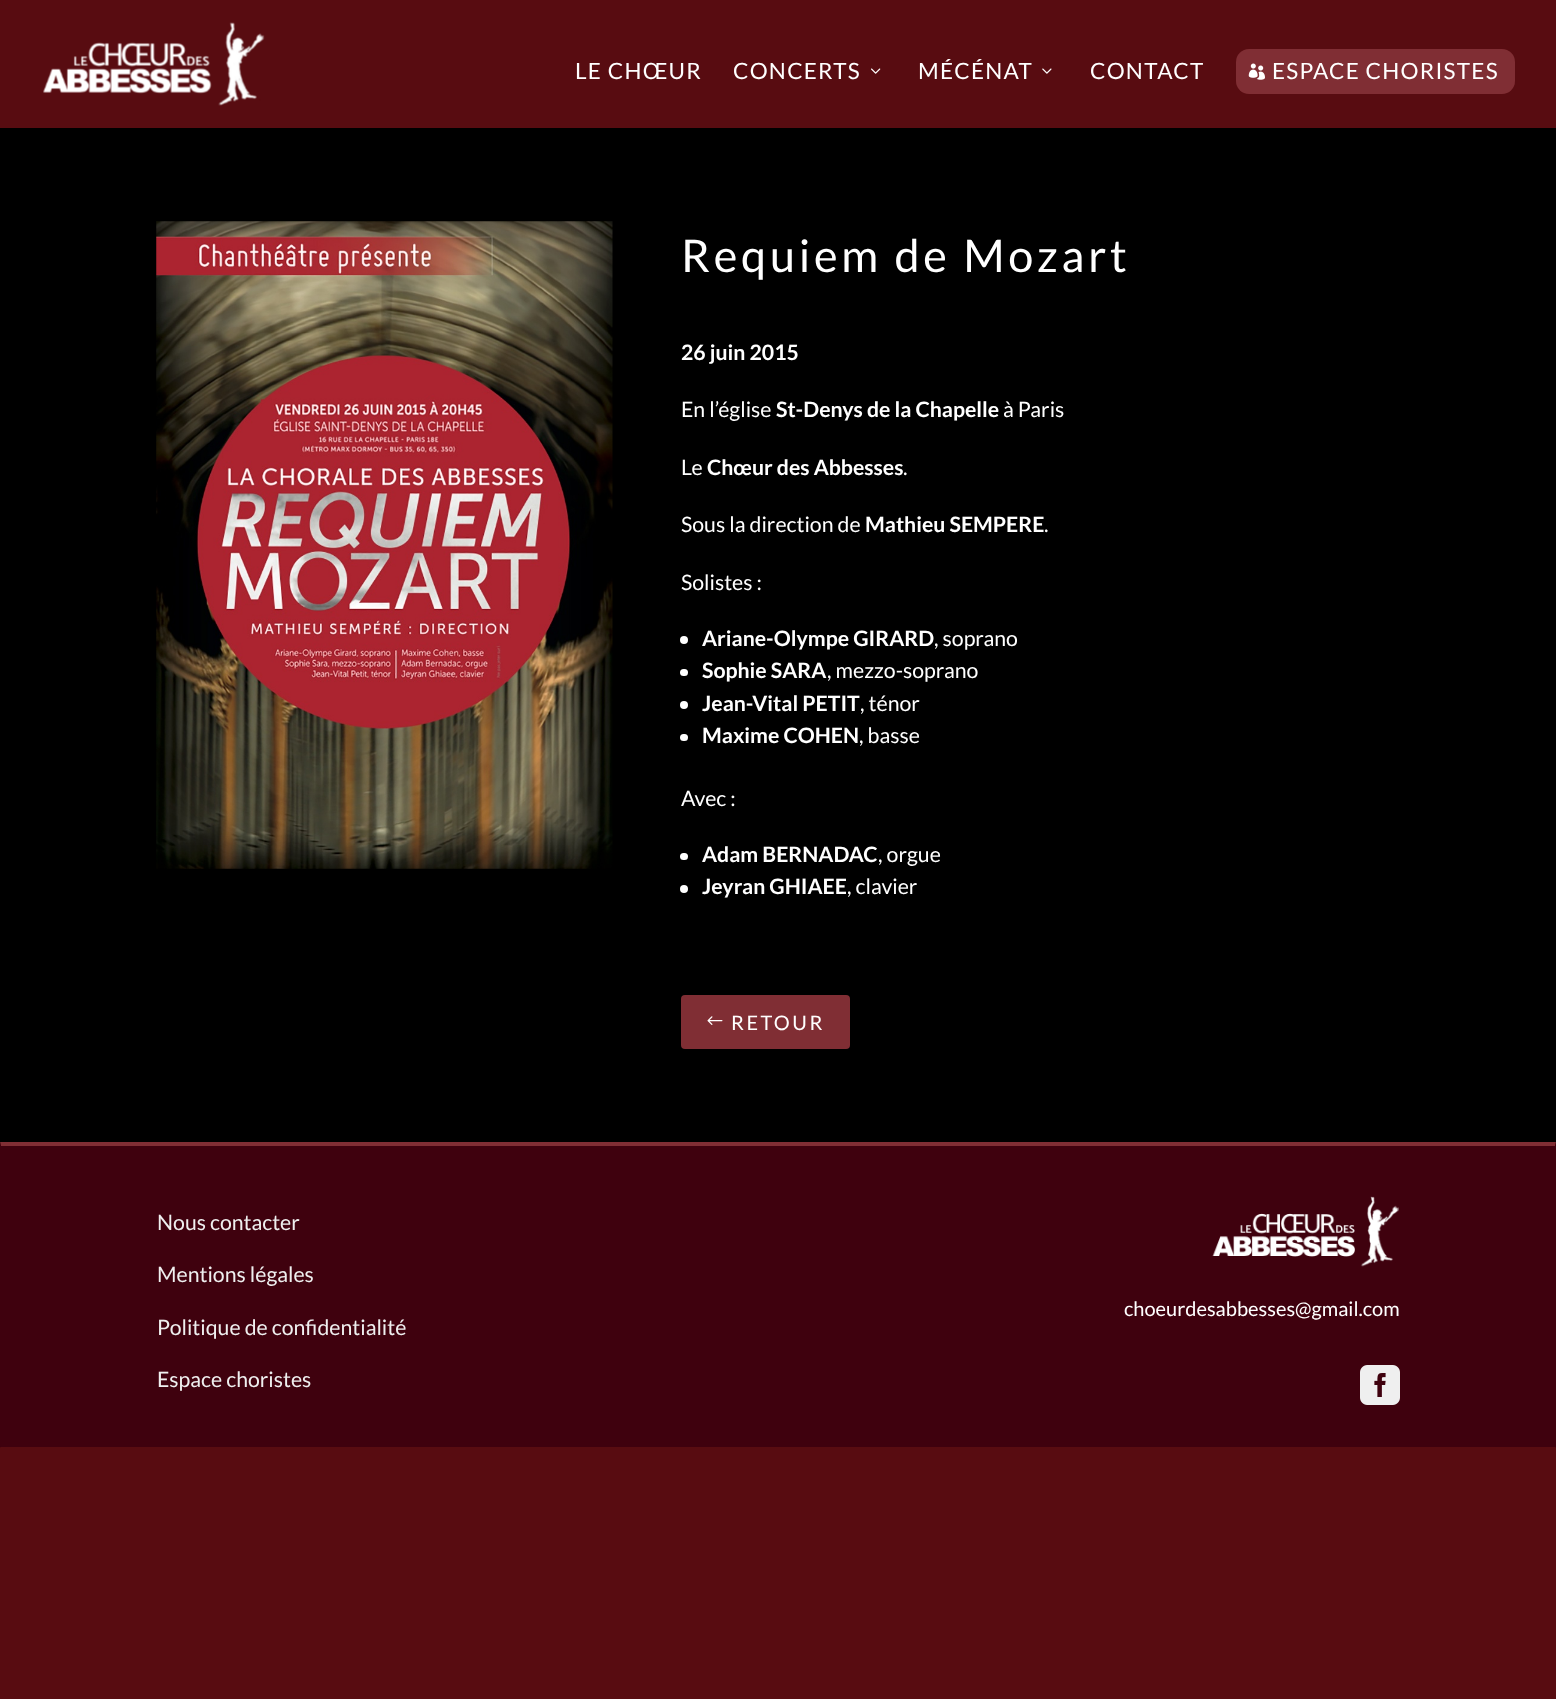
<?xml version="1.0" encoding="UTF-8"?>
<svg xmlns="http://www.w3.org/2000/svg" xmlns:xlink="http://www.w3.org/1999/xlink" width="1556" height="1699">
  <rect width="100%" height="100%" fill="#580c11" />
  <image x="43" y="22" width="222" height="84" xlink:href="image1.png" />
  <image x="871" y="68" width="10" height="6" xlink:href="image2.png" />
  <image x="1042" y="68" width="10" height="6" xlink:href="image3.png" />
  <rect x="1236" y="49" width="279" height="45" rx="13" fill="#802e34" />
  <image x="1248" y="63" width="17" height="17" xlink:href="image4.png" />
  <rect y="128" width="1556" height="1015" fill="#000000" />
  <image x="156" y="221" width="457" height="648" xlink:href="image5.png" />
  <circle cx="684" cy="640" r="4" fill="#ffffff" />
  <rect x="680" y="669" width="8" height="7" rx="3.5" fill="#ffffff" />
  <circle cx="684" cy="705" r="4" fill="#ffffff" />
  <rect x="680" y="734" width="8" height="7" rx="3.5" fill="#ffffff" />
  <rect x="680" y="853" width="8" height="7" rx="3.5" fill="#ffffff" />
  <circle cx="684" cy="889" r="4" fill="#ffffff" />
  <rect x="681" y="995" width="169" height="54" rx="4" fill="#802e34" />
  <image x="707" y="1016" width="16" height="9" xlink:href="image6.png" />
  <rect x="1" y="1146" width="1554" height="300" fill="#3f010e" />
  <path d="M 0 1142 h 1556 l -1 4 h -1554 z" fill="#802e34" />
  <path d="M 1556 1142 v 306 l -1 -2 v -300 z" fill="#3f010e" />
  <rect y="1446" width="1556" height="1" fill="#3f010e" />
  <path d="M 0 1448 v -306 l 1 4 v 300 z" fill="#3f010e" />
  <image x="1212" y="1196" width="187" height="71" xlink:href="image7.png" />
  <image x="1360" y="1365" width="40" height="40" xlink:href="image8.png" />
  <text x="575" y="79" style="font-family: Lato; font-size: 22.5px; letter-spacing: 1.25px; fill: #ffffff">LE CHŒUR</text>
  <text x="733" y="79" style="font-family: Lato; font-size: 22.5px; letter-spacing: 1.25px; fill: #ffffff">CONCERTS</text>
  <text x="918" y="79" style="font-family: Lato; font-size: 22.5px; letter-spacing: 1.25px; fill: #ffffff">MÉCÉNAT</text>
  <text x="1090" y="79" style="font-family: Lato; font-size: 22.5px; letter-spacing: 1.25px; fill: #ffffff">CONTACT</text>
  <text x="1272" y="79" style="font-family: Lato; font-size: 22.5px; letter-spacing: 1.25px; fill: #ffffff">ESPACE CHORISTES</text>
  <text x="681" y="272" style="font-family: Lato; font-size: 45px; letter-spacing: 3.75px; fill: #ffffff">Requiem de Mozart</text>
  <text x="681" y="360" style="font-family: Lato; font-size: 21.25px; font-weight: bold; fill: #ffffff">26 juin 2015</text>
  <text x="681" y="417" style="font-family: Lato; font-size: 21.25px; fill: #ffffff">En l’église</text>
  <text x="776" y="417" style="font-family: Lato; font-size: 21.25px; font-weight: bold; fill: #ffffff">St-Denys de la Chapelle</text>
  <text x="1003" y="417" style="font-family: Lato; font-size: 21.25px; fill: #ffffff">à Paris</text>
  <text x="681" y="475" style="font-family: Lato; font-size: 21.25px; fill: #ffffff">Le</text>
  <text x="707" y="475" style="font-family: Lato; font-size: 21.25px; font-weight: bold; fill: #ffffff">Chœur des Abbesses</text>
  <text x="903" y="475" style="font-family: Lato; font-size: 21.25px; fill: #ffffff">.</text>
  <text x="681" y="532" style="font-family: Lato; font-size: 21.25px; fill: #ffffff">Sous la direction de</text>
  <text x="865" y="532" style="font-family: Lato; font-size: 21.25px; font-weight: bold; fill: #ffffff">Mathieu SEMPERE</text>
  <text x="1044" y="532" style="font-family: Lato; font-size: 21.25px; fill: #ffffff">.</text>
  <text x="681" y="590" style="font-family: Lato; font-size: 21.25px; fill: #ffffff">Solistes :</text>
  <text x="702" y="646" style="font-family: Lato; font-size: 21.25px; font-weight: bold; fill: #ffffff">Ariane-Olympe GIRARD</text>
  <text x="934" y="646" style="font-family: Lato; font-size: 21.25px; fill: #ffffff">, soprano</text>
  <text x="702" y="678" style="font-family: Lato; font-size: 21.25px; font-weight: bold; fill: #ffffff">Sophie SARA</text>
  <text x="827" y="678" style="font-family: Lato; font-size: 21.25px; fill: #ffffff">, mezzo-soprano</text>
  <text x="702" y="711" style="font-family: Lato; font-size: 21.25px; font-weight: bold; fill: #ffffff">Jean-Vital PETIT</text>
  <text x="860" y="711" style="font-family: Lato; font-size: 21.25px; fill: #ffffff">, ténor</text>
  <text x="702" y="743" style="font-family: Lato; font-size: 21.25px; font-weight: bold; fill: #ffffff">Maxime COHEN</text>
  <text x="859" y="743" style="font-family: Lato; font-size: 21.25px; fill: #ffffff">, basse</text>
  <text x="681" y="806" style="font-family: Lato; font-size: 21.25px; fill: #ffffff">Avec :</text>
  <text x="702" y="862" style="font-family: Lato; font-size: 21.25px; font-weight: bold; fill: #ffffff">Adam BERNADAC</text>
  <text x="878" y="862" style="font-family: Lato; font-size: 21.25px; fill: #ffffff">, orgue</text>
  <text x="702" y="894" style="font-family: Lato; font-size: 21.25px; font-weight: bold; fill: #ffffff">Jeyran GHIAEE</text>
  <text x="847" y="894" style="font-family: Lato; font-size: 21.25px; fill: #ffffff">, clavier</text>
  <text x="731" y="1030" style="font-family: Lato; font-size: 20px; letter-spacing: 2.5px; fill: #ffffff">RETOUR</text>
  <text x="157" y="1230" style="font-family: Lato; font-size: 21.25px; fill: #efefef">Nous contacter</text>
  <text x="157" y="1282" style="font-family: Lato; font-size: 21.25px; fill: #efefef">Mentions légales</text>
  <text x="157" y="1335" style="font-family: Lato; font-size: 21.25px; fill: #efefef">Politique de confidentialité</text>
  <text x="157" y="1387" style="font-family: Lato; font-size: 21.25px; fill: #efefef">Espace choristes</text>
  <text x="1124" y="1316" style="font-family: Lato; font-size: 20px; fill: #ffffff">choeurdesabbesses@gmail.com</text>
</svg>
